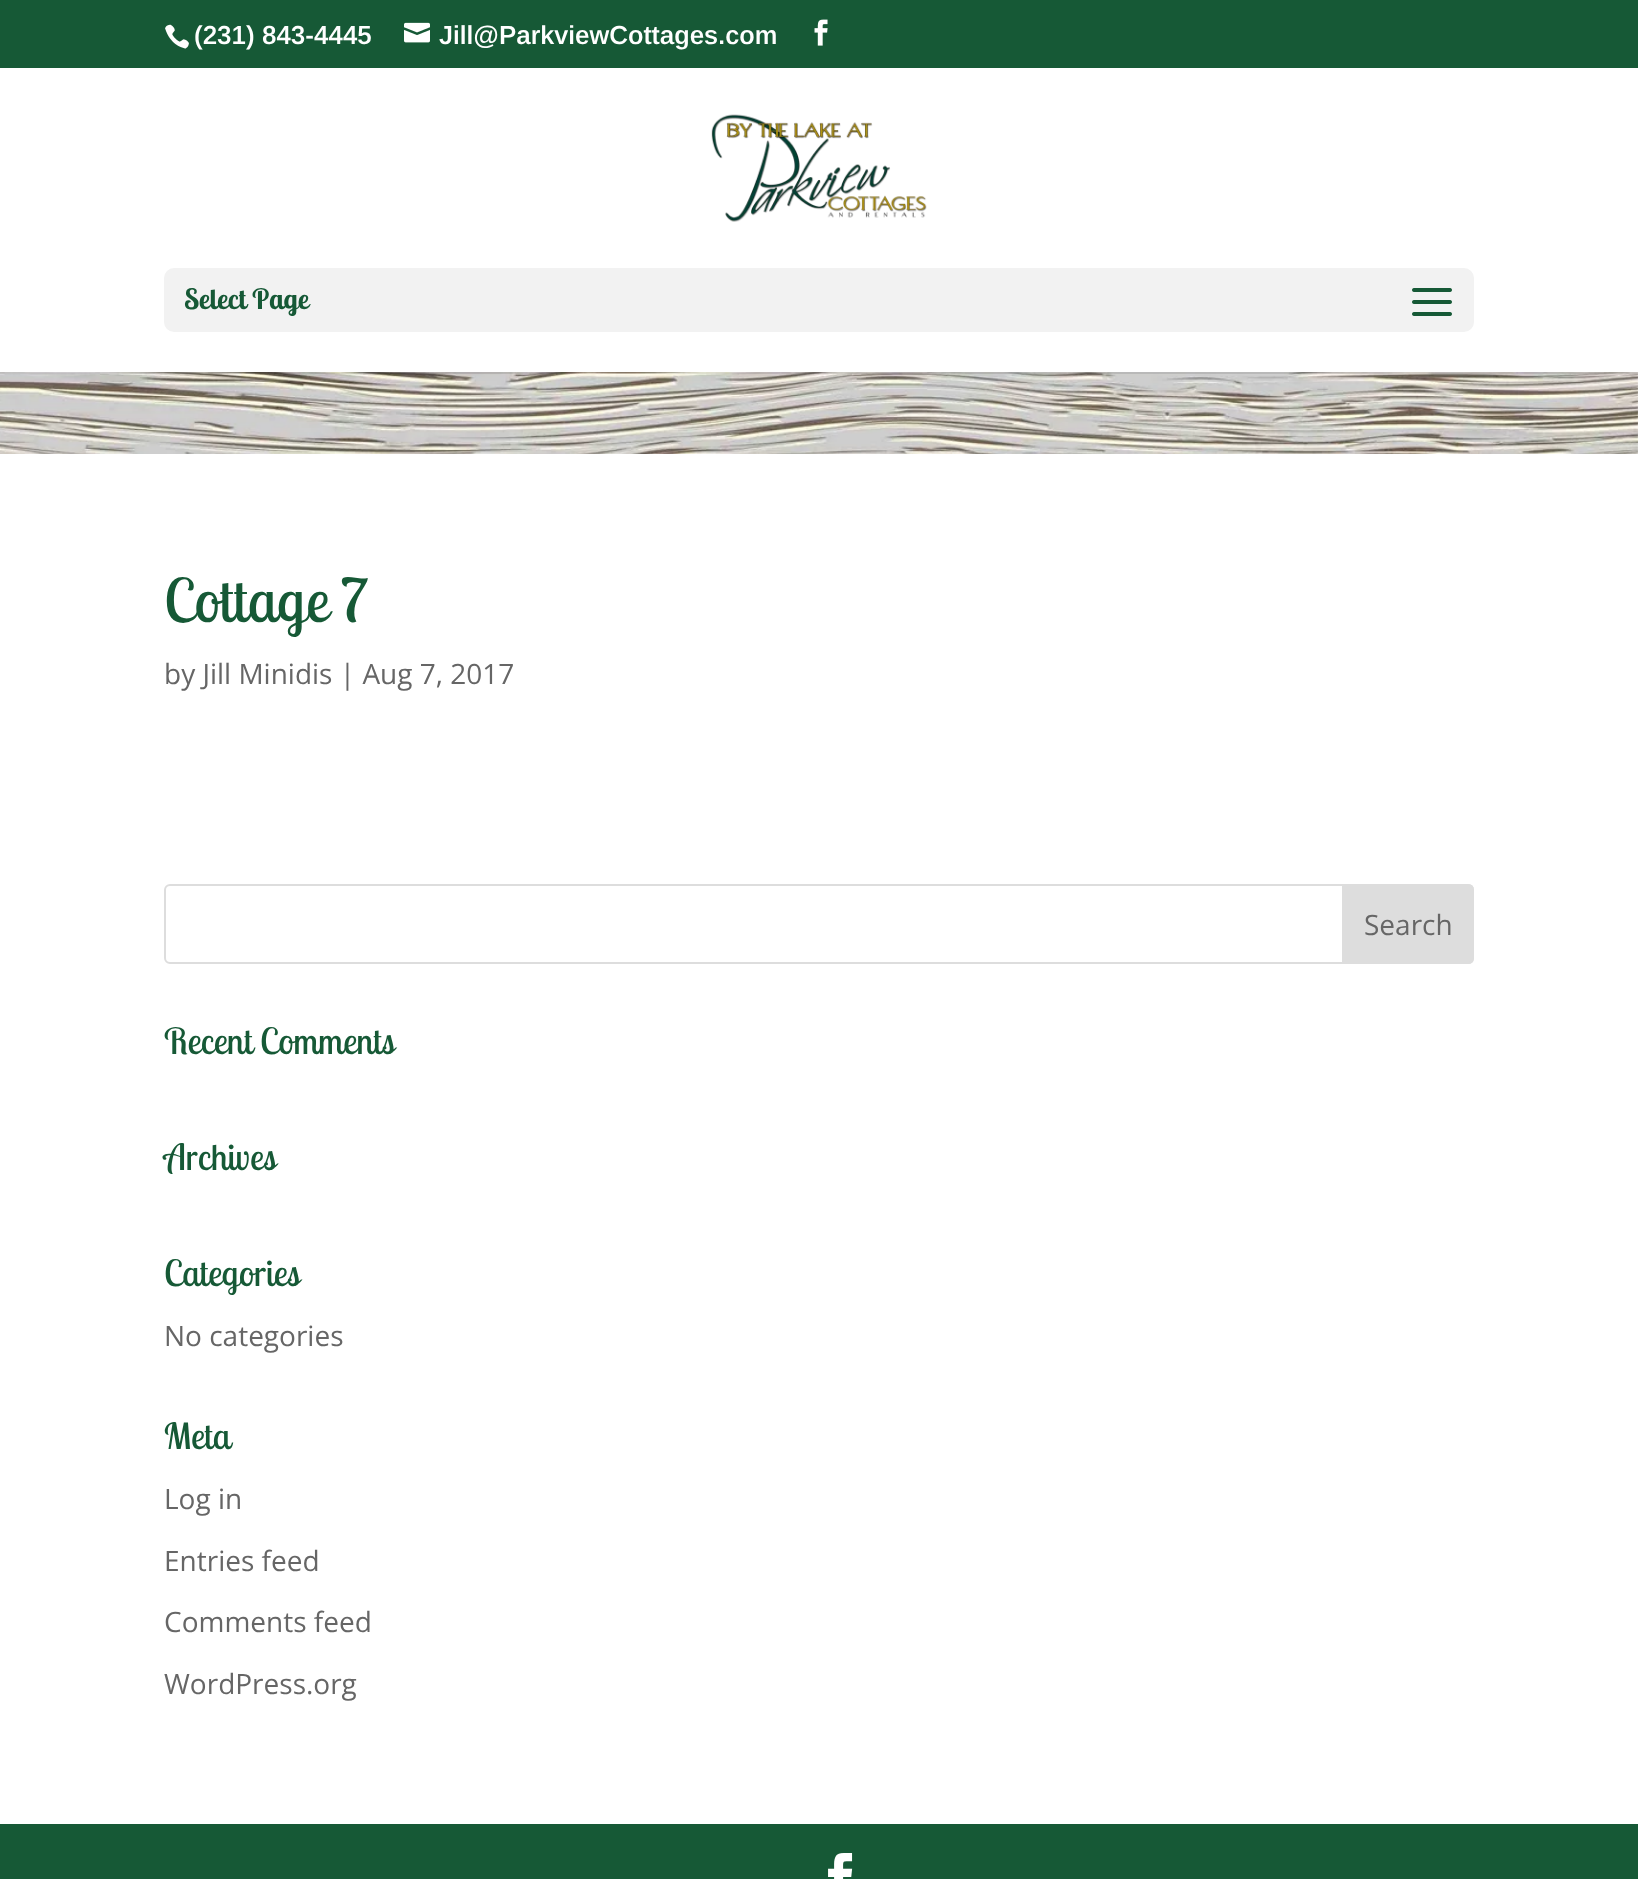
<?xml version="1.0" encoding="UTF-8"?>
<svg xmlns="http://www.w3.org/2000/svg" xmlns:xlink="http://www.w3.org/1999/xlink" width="1638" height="1879">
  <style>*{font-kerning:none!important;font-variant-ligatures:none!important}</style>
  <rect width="100%" height="100%" fill="#ffffff" />
  <image x="0" y="372" width="1638" height="82" xlink:href="image1.png" />
  <rect width="1638" height="68" fill="#165936" />
  <image x="165" y="24" width="24" height="25" xlink:href="image2.png" />
  <image x="404" y="22" width="26" height="21" xlink:href="image3.png" />
  <image x="814" y="19" width="14" height="27" xlink:href="image4.png" />
  <rect y="372" width="1638" height="2" fill="#000000" fill-opacity="0.1" />
  <image x="711" y="114" width="216" height="108" xlink:href="image5.png" />
  <rect x="164" y="268" width="1310" height="64" rx="10" fill="#f2f2f2" />
  <image x="1412" y="288" width="40" height="28" xlink:href="image6.png" />
  <rect x="165" y="885" width="1308" height="78" rx="5" fill="none" stroke="#dddddd" stroke-width="2" />
  <path d="M 1343 885 h 125 c 3 0 5 2 5 5 v 68 c 0 3 -2 5 -5 5 h -125 z" fill="#dddddd" stroke="#dddddd" stroke-width="2" />
  <rect y="1824" width="1638" height="55" fill="#165936" />
  <image x="828" y="1853" width="25" height="26" xlink:href="image7.png" />
  <text x="194" y="44" style="font-family: Arimo; font-size: 26px; font-weight: 600; fill: #ffffff">(231) 843-4445</text>
  <text x="439" y="44" style="font-family: Arimo; font-size: 26px; font-weight: 600; fill: #ffffff">Jill@ParkviewCottages.com</text>
  <text x="184" y="309" style="font-family: Lobster Two; font-size: 28px; font-weight: bold; fill: #165936">Select Page</text>
  <text x="164" y="622" style="font-family: Lobster Two; font-size: 60px; fill: #165936">Cottage 7</text>
  <text x="164" y="684" style="font-family: Open Sans; font-size: 28px; fill: #666666">by Jill Minidis | Aug 7, 2017</text>
  <text x="1364" y="935" style="font-family: Open Sans; font-size: 28px; fill: #666666">Search</text>
  <text x="164" y="1054" style="font-family: Lobster Two; font-size: 36px; fill: #165936">Recent Comments</text>
  <text x="164" y="1170" style="font-family: Lobster Two; font-size: 36px; fill: #165936">Archives</text>
  <text x="164" y="1286" style="font-family: Lobster Two; font-size: 36px; fill: #165936">Categories</text>
  <text x="164" y="1346" style="font-family: Open Sans; font-size: 28px; fill: #666666">No categories</text>
  <text x="164" y="1449" style="font-family: Lobster Two; font-size: 36px; fill: #165936">Meta</text>
  <text x="164" y="1509" style="font-family: Open Sans; font-size: 28px; fill: #666666">Log in</text>
  <text x="164" y="1571" style="font-family: Open Sans; font-size: 28px; fill: #666666">Entries feed</text>
  <text x="164" y="1632" style="font-family: Open Sans; font-size: 28px; fill: #666666">Comments feed</text>
  <text x="164" y="1694" style="font-family: Open Sans; font-size: 28px; fill: #666666">WordPress.org</text>
</svg>
